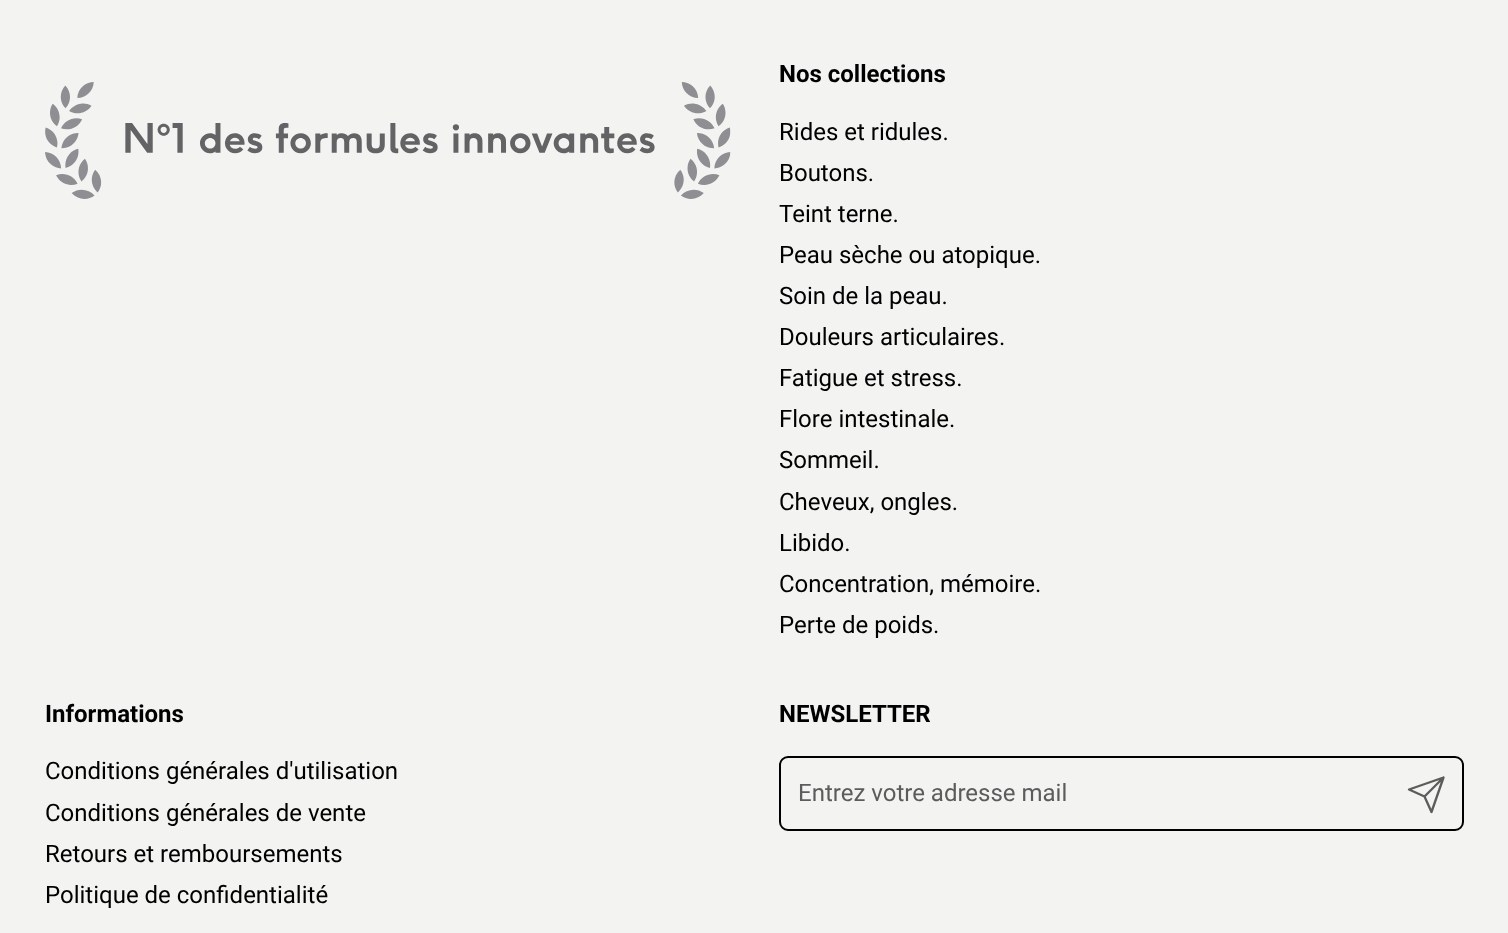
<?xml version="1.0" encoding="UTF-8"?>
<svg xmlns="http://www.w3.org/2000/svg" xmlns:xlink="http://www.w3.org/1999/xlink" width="1508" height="933">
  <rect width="100%" height="100%" fill="#f3f3f1" />
  <image x="45" y="82" width="686" height="117" xlink:href="image1.png" />
  <rect x="780" y="757" width="683" height="73" rx="8" fill="none" stroke="#000000" stroke-width="2" />
  <path d="M 1443.5 777.5 l -19 19 m 19 -19 l -12 34.5 l -7 -15.5 l -15.5 -7 z" fill="none" stroke="#5c5c5c" stroke-width="2.3" stroke-linecap="round" stroke-linejoin="round" />
  <text x="779" y="82" style="font-family: Roboto; font-size: 24px; font-weight: bold; fill: #000000">Nos collections</text>
  <text x="779" y="140" style="font-family: Roboto; font-size: 24px; fill: #000000">Rides et ridules.</text>
  <text x="779" y="181" style="font-family: Roboto; font-size: 24px; fill: #000000">Boutons.</text>
  <text x="779" y="222" style="font-family: Roboto; font-size: 24px; fill: #000000">Teint terne.</text>
  <text x="779" y="263" style="font-family: Roboto; font-size: 24px; fill: #000000">Peau sèche ou atopique.</text>
  <text x="779" y="304" style="font-family: Roboto; font-size: 24px; fill: #000000">Soin de la peau.</text>
  <text x="779" y="345" style="font-family: Roboto; font-size: 24px; fill: #000000">Douleurs articulaires.</text>
  <text x="779" y="386" style="font-family: Roboto; font-size: 24px; fill: #000000">Fatigue et stress.</text>
  <text x="779" y="427" style="font-family: Roboto; font-size: 24px; fill: #000000">Flore intestinale.</text>
  <text x="779" y="468" style="font-family: Roboto; font-size: 24px; fill: #000000">Sommeil.</text>
  <text x="779" y="510" style="font-family: Roboto; font-size: 24px; fill: #000000">Cheveux, ongles.</text>
  <text x="779" y="551" style="font-family: Roboto; font-size: 24px; fill: #000000">Libido.</text>
  <text x="779" y="592" style="font-family: Roboto; font-size: 24px; fill: #000000">Concentration, mémoire.</text>
  <text x="779" y="633" style="font-family: Roboto; font-size: 24px; fill: #000000">Perte de poids.</text>
  <text x="45" y="722" style="font-family: Roboto; font-size: 24px; font-weight: bold; fill: #000000">Informations</text>
  <text x="45" y="779" style="font-family: Roboto; font-size: 24px; fill: #000000">Conditions générales d'utilisation</text>
  <text x="45" y="821" style="font-family: Roboto; font-size: 24px; fill: #000000">Conditions générales de vente</text>
  <text x="45" y="862" style="font-family: Roboto; font-size: 24px; fill: #000000">Retours et remboursements</text>
  <text x="45" y="903" style="font-family: Roboto; font-size: 24px; fill: #000000">Politique de confidentialité</text>
  <text x="779" y="722" style="font-family: Roboto; font-size: 24px; font-weight: bold; fill: #000000">NEWSLETTER</text>
  <text x="798" y="801" style="font-family: Roboto; font-size: 24px; fill: #5c5c5c">Entrez votre adresse mail</text>
</svg>
